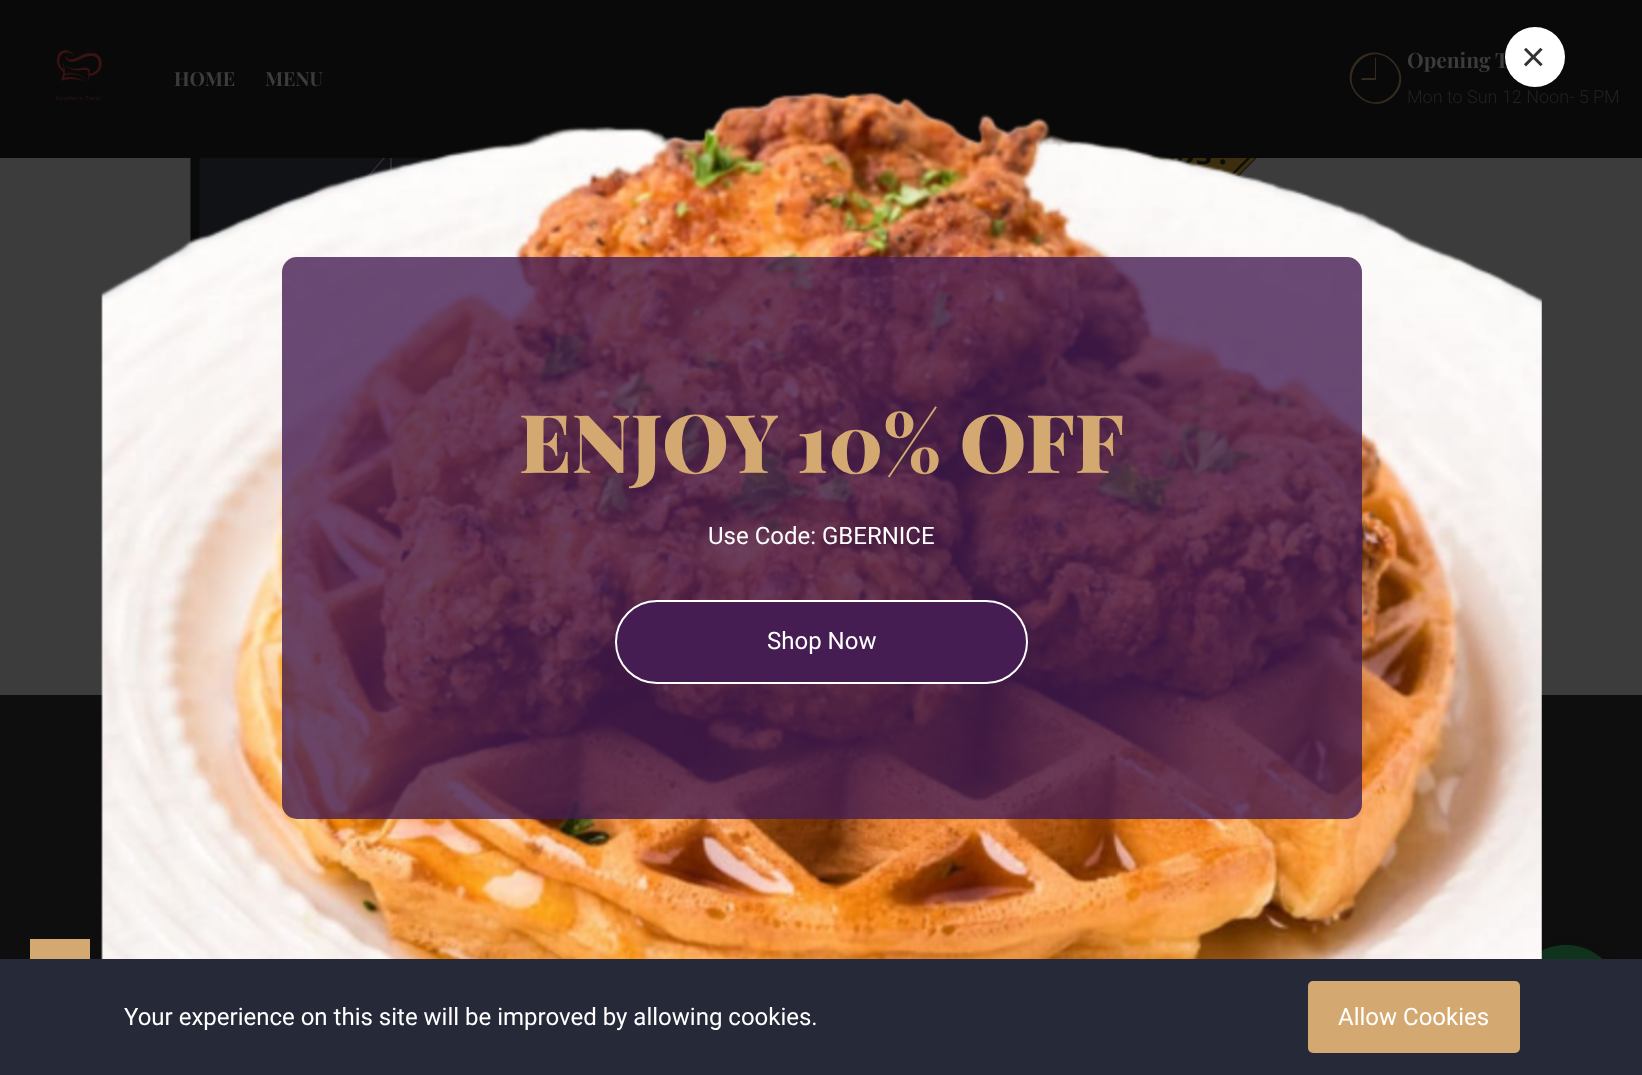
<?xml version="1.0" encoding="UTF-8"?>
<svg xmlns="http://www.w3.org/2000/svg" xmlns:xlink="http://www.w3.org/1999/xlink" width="1642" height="1075">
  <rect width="100%" height="100%" fill="#3c3c3c" />
  <rect width="1642" height="158" fill="#090909" />
  <image x="49" y="49" width="57" height="51" xlink:href="image2.png" />
  <path d="M 1357 60 c 24 -23 60 13 37 36 c -24 24 -60 -12 -37 -36 z m 2 35 c 22 22 55 -11 33 -33 c -22 -23 -55 11 -33 33 z m 16 -36 v -1 c 2 -1 1 4 1 4 v 18 c -3 0 -15 0 -15 0 c 0 -2 2 -2 3 -2 h 11 z" fill="#332b1f" />
  <image x="190" y="158" width="263" height="90" xlink:href="image3.png" />
  <image x="1147" y="158" width="110" height="21" xlink:href="image4.png" />
  <rect y="695" width="1642" height="264" fill="#0e0e0e" />
  <rect x="30" y="939" width="60" height="20" fill="#d3a971" />
  <rect x="1514" y="947" width="108" height="108" rx="54" fill="#151515" fill-opacity="0.4" filter="blur(3px)" />
  <circle cx="1566" cy="999" r="54" fill="#10331d" />
  <image x="1541" y="945" width="61" height="14" xlink:href="image5.png" />
  <rect y="959" width="1642" height="116" fill="#262938" />
  <rect x="1308" y="981" width="212" height="72" rx="5" fill="#d3a971" />
  <text x="174" y="86" style="font-family: Playfair Display; font-size: 19.5px; font-weight: bold; fill: #3c3c3c">HOME</text>
  <text x="265" y="86" style="font-family: Playfair Display; font-size: 19.5px; font-weight: bold; fill: #3c3c3c">MENU</text>
  <text x="1407" y="68" style="font-family: Playfair Display; font-size: 21px; font-weight: bold; fill: #3c3c3c">Opening T</text>
  <circle cx="1535" cy="57" r="30" fill="#ffffff" />
  <text x="1521" y="71" style="font-family: Liberation Sans; font-size: 42px; fill: #333333">×</text>
  <text x="1407" y="103" style="font-family: Roboto; font-size: 18px; font-weight: 300; fill: #222222">Mon to Sun 12 Noon- 5 PM</text>
  <image x="101" y="91" width="1441" height="868" xlink:href="image1.png" />
  <rect x="282" y="257" width="1080" height="562" rx="15" fill="#451d53" fill-opacity="0.8" />
  <rect x="616" y="601" width="411" height="82" rx="41" fill="#451d53" stroke="#ffffff" stroke-width="2" />
  <text x="767" y="649" style="font-family: Roboto; font-size: 24px; fill: #ffffff">Shop Now</text>
  <text x="708" y="544" style="font-family: Roboto; font-size: 24px; fill: #ffffff">Use Code: GBERNICE</text>
  <text x="519" y="473" style="font-family: Playfair Display; font-size: 81px; font-weight: 900; fill: #d3a971">ENJOY 10% OFF</text>
  <text x="124" y="1025" style="font-family: Roboto; font-size: 24px; fill: #ffffff">Your experience on this site will be improved by allowing cookies.</text>
  <text x="1338" y="1025" style="font-family: Roboto; font-size: 24px; fill: #ffffff">Allow Cookies</text>
</svg>
